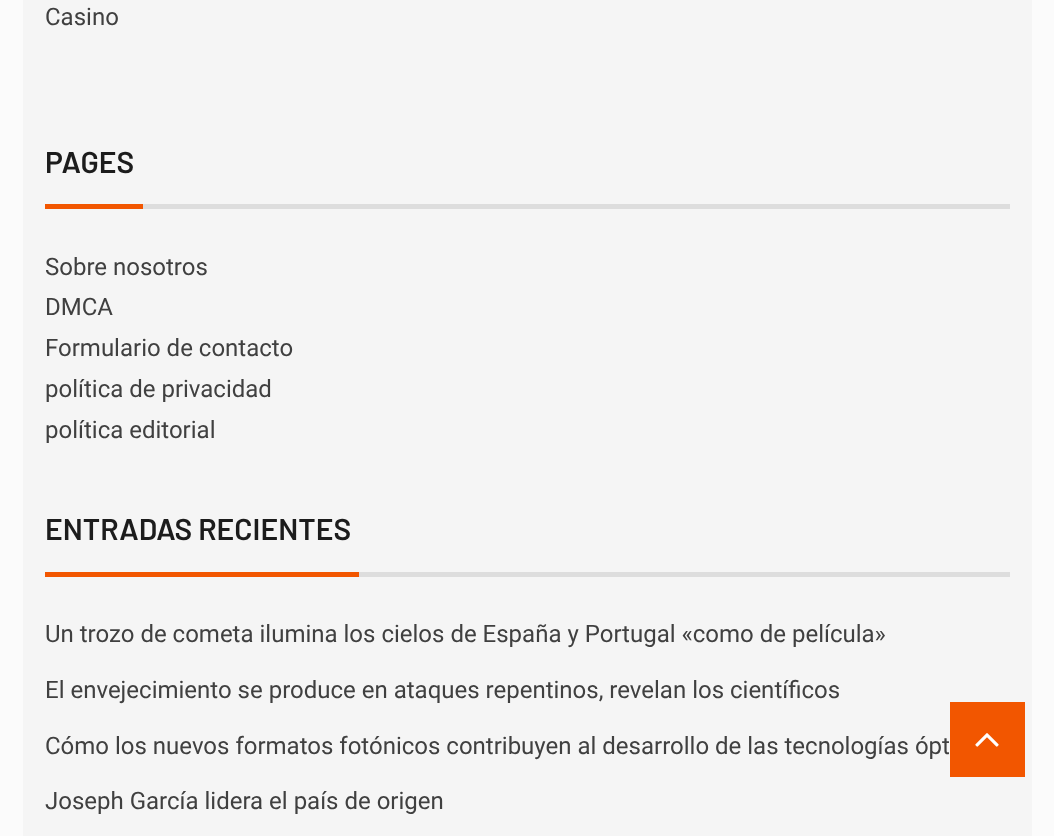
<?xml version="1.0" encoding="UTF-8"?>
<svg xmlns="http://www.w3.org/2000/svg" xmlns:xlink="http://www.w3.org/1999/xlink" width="1054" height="836">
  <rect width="100%" height="100%" fill="#fbfbfb" />
  <rect x="23" width="1009" height="836" fill="#f5f5f5" />
  <rect x="45" y="204" width="98" height="5" fill="#f25600" />
  <rect x="143" y="204" width="867" height="5" fill="#dddddd" />
  <rect x="45" y="572" width="314" height="5" fill="#f25600" />
  <rect x="359" y="572" width="651" height="5" fill="#dddddd" />
  <rect x="950" y="702" width="75" height="75" fill="#f25600" />
  <image x="975" y="733" width="24" height="14" xlink:href="image1.png" />
  <text x="45" y="25" style="font-family: Roboto; font-size: 24px; fill: #404040">Casino</text>
  <text x="45" y="173" style="font-family: Barlow; font-size: 30px; font-weight: 600; fill: #1c1c1c">PAGES</text>
  <text x="45" y="275" style="font-family: Roboto; font-size: 24px; fill: #404040">Sobre nosotros</text>
  <text x="45" y="315" style="font-family: Roboto; font-size: 24px; fill: #404040">DMCA</text>
  <text x="45" y="356" style="font-family: Roboto; font-size: 24px; fill: #404040">Formulario de contacto</text>
  <text x="45" y="397" style="font-family: Roboto; font-size: 24px; fill: #404040">política de privacidad</text>
  <text x="45" y="438" style="font-family: Roboto; font-size: 24px; fill: #404040">política editorial</text>
  <text x="45" y="540" style="font-family: Barlow; font-size: 30px; font-weight: 600; fill: #1c1c1c">ENTRADAS RECIENTES</text>
  <text x="45" y="642" style="font-family: Roboto; font-size: 24px; fill: #404040">Un trozo de cometa ilumina los cielos de España y Portugal «como de película»</text>
  <text x="45" y="698" style="font-family: Roboto; font-size: 24px; fill: #404040">El envejecimiento se produce en ataques repentinos, revelan los científicos</text>
  <text x="45" y="754" style="font-family: Roboto; font-size: 24px; fill: #404040">Cómo los nuevos formatos fotónicos contribuyen al desarrollo de las tecnologías ópt</text>
  <text x="45" y="809" style="font-family: Roboto; font-size: 24px; fill: #404040">Joseph García lidera el país de origen</text>
</svg>
